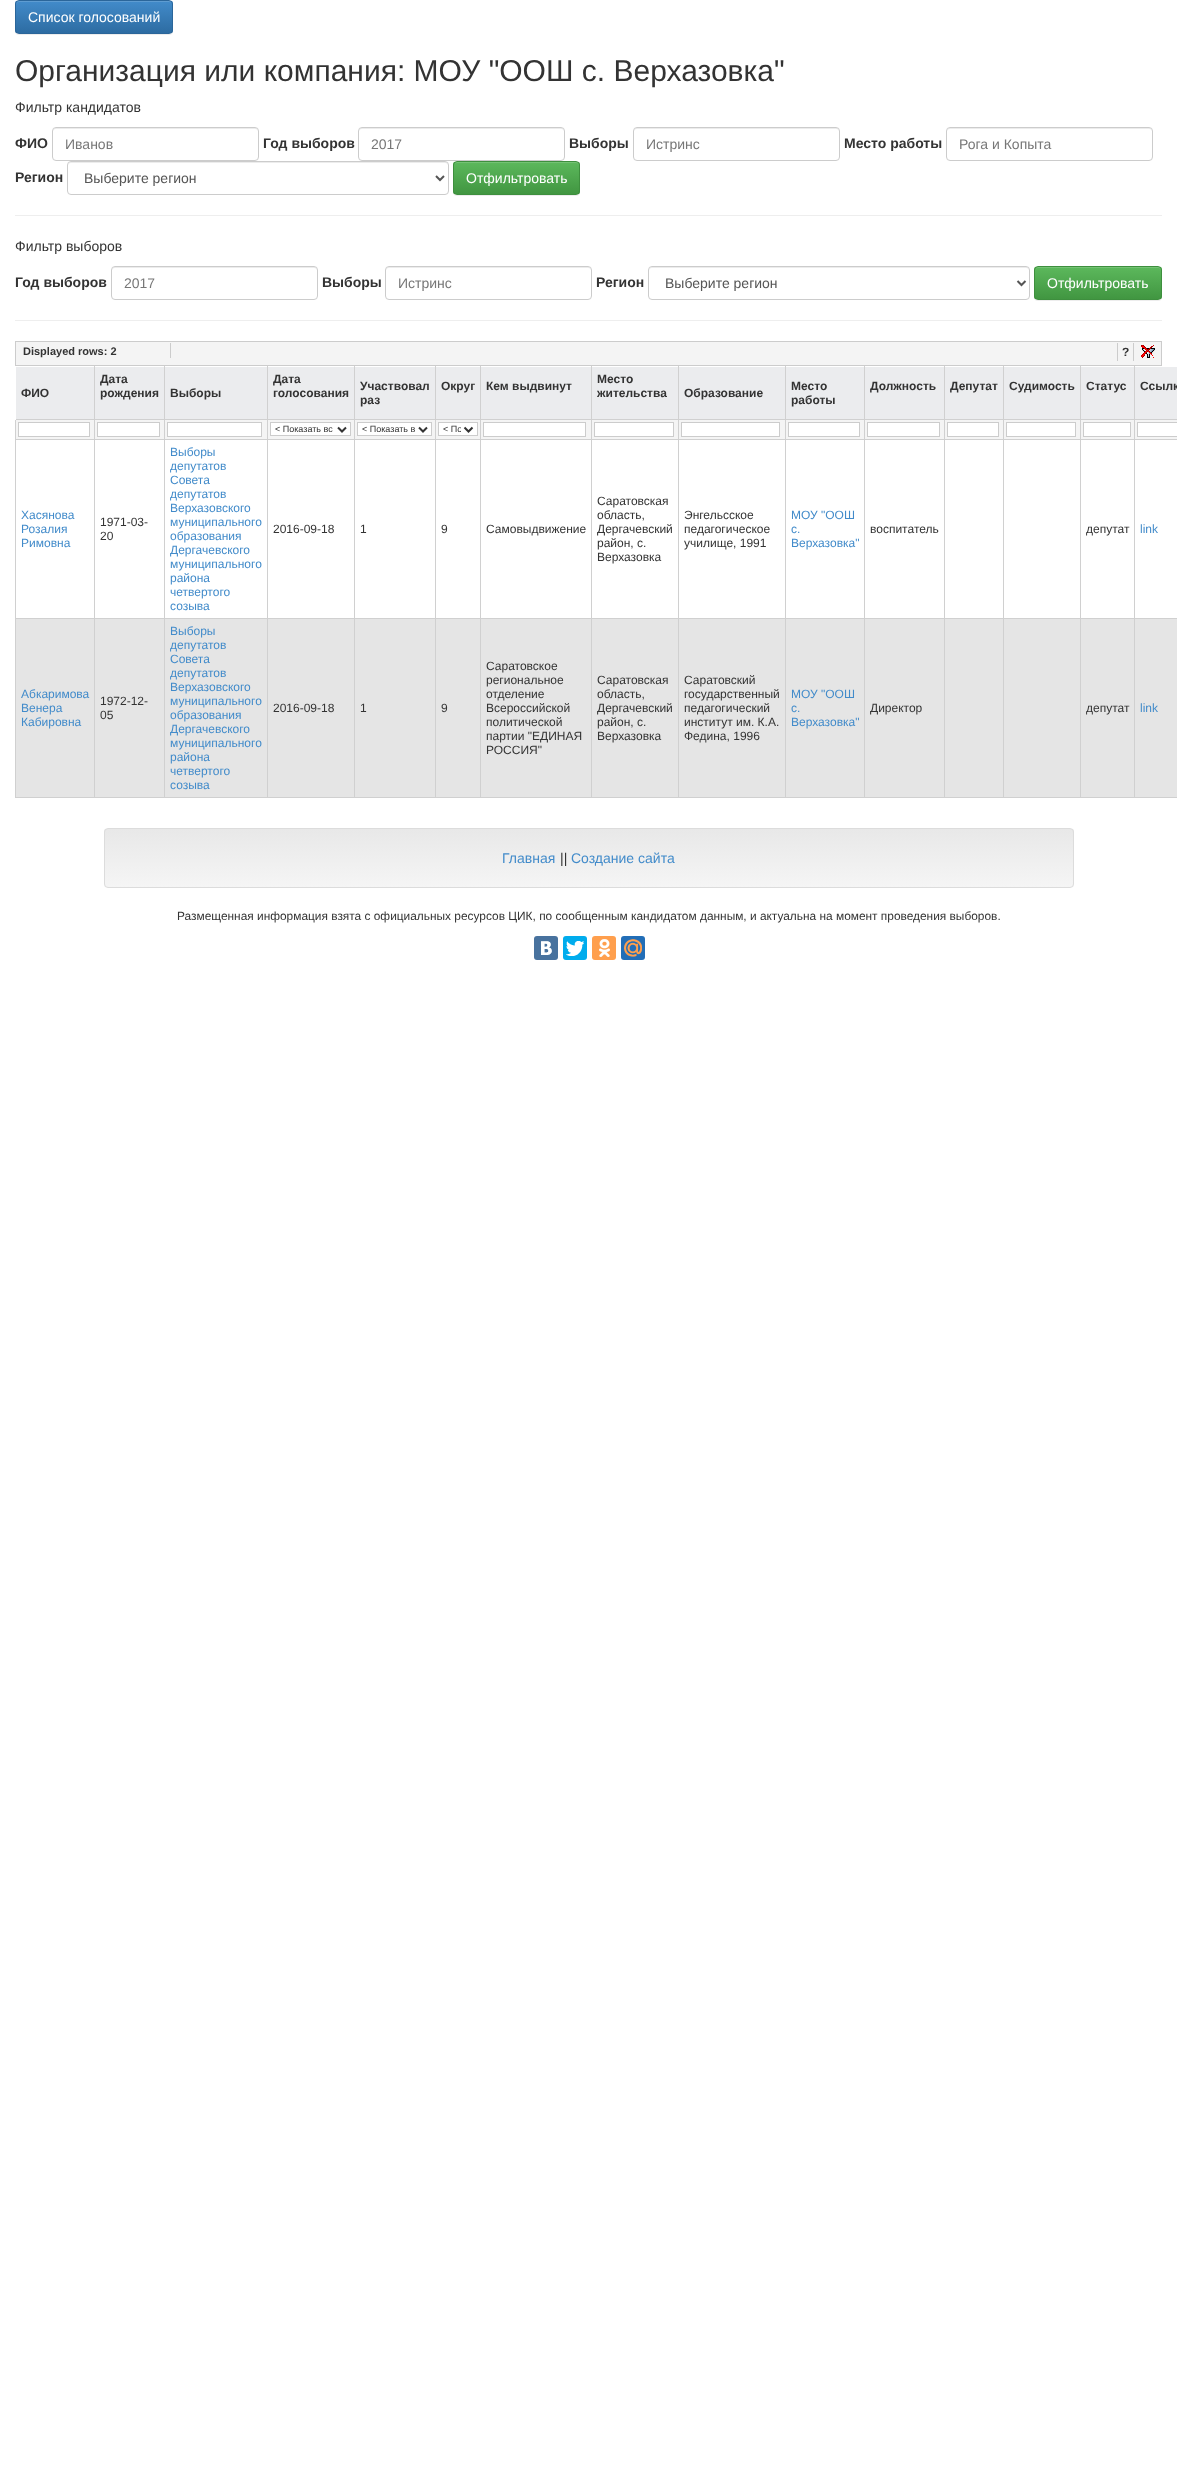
<?xml version="1.0" encoding="UTF-8"?>
<svg xmlns="http://www.w3.org/2000/svg" xmlns:xlink="http://www.w3.org/1999/xlink" width="1177" height="2469">
  <defs>
    <clipPath id="clip1"><rect x="15" width="158" height="34" rx="4" /></clipPath>
    <linearGradient id="g1" gradientUnits="userSpaceOnUse" x1="94" y1="1" x2="94" y2="33"><stop offset="0" stop-color="#428bca" /><stop offset="1" stop-color="#2d6ca2" /></linearGradient>
    <clipPath id="clip2"><rect x="453" y="161" width="127" height="34" rx="4" /></clipPath>
    <linearGradient id="g2" gradientUnits="userSpaceOnUse" x1="517" y1="162" x2="517" y2="194"><stop offset="0" stop-color="#5cb85c" /><stop offset="1" stop-color="#419641" /></linearGradient>
    <clipPath id="clip3"><rect x="1034" y="266" width="128" height="34" rx="4" /></clipPath>
    <linearGradient id="g3" gradientUnits="userSpaceOnUse" x1="1098" y1="267" x2="1098" y2="299"><stop offset="0" stop-color="#5cb85c" /><stop offset="1" stop-color="#419641" /></linearGradient>
    <clipPath id="clip4"><rect x="104" y="828" width="970" height="60" rx="4" /></clipPath>
    <linearGradient id="g4" gradientUnits="userSpaceOnUse" x1="589" y1="829" x2="589" y2="887"><stop offset="0" stop-color="#e8e8e8" /><stop offset="1" stop-color="#f5f5f5" /></linearGradient>
    <clipPath id="clip5"><rect x="443" y="423" width="18" height="12" /></clipPath>
  </defs>
  <rect width="100%" height="100%" fill="#ffffff" />
  <rect x="15" y="1" width="158" height="34" rx="4" fill="#000000" fill-opacity="0.07" filter="blur(0.5px)" />
  <g clip-path="url(#clip1)">
    <rect x="15" y="1" width="158" height="32" fill="url(#g1)" />
  </g>
  <path d="M 19 2 h 150 c 2 0 3 1 3 3 c 0 -2 -1 -4 -3 -4 h -151 c -2 0 -2 2 -2 4 c 0 -2 1 -3 3 -3 z" fill="#5e9cd1" />
  <rect x="15.5" y="0.5" width="157" height="33" rx="3.5" fill="none" stroke="#2b669a" />
  <path d="M 56 129 h 199 c 2 0 3 1 3 3 c 0 -2 -1 -4 -3 -4 h -199 c -2 0 -3 2 -3 4 c 0 -2 1 -3 3 -3 z" fill="#ececec" />
  <rect x="52.5" y="127.5" width="206" height="33" rx="3.5" fill="none" stroke="#cccccc" />
  <path d="M 362 129 h 199 c 2 0 3 1 3 3 c 0 -2 -1 -4 -3 -4 h -199 c -2 0 -3 2 -3 4 c 0 -2 1 -3 3 -3 z" fill="#ececec" />
  <rect x="358.5" y="127.5" width="206" height="33" rx="3.5" fill="none" stroke="#cccccc" />
  <path d="M 637 129 h 199 c 2 0 3 1 3 3 c 0 -2 -1 -4 -3 -4 h -199 c -2 0 -3 2 -3 4 c 0 -2 1 -3 3 -3 z" fill="#ececec" />
  <rect x="633.5" y="127.5" width="206" height="33" rx="3.5" fill="none" stroke="#cccccc" />
  <path d="M 950 129 h 199 c 2 0 3 1 3 3 c 0 -2 -1 -4 -3 -4 h -199 c -2 0 -3 2 -3 4 c 0 -2 1 -3 3 -3 z" fill="#ececec" />
  <rect x="946.5" y="127.5" width="206" height="33" rx="3.5" fill="none" stroke="#cccccc" />
  <path d="M 71 163 h 374 c 2 0 3 1 3 3 c 0 -2 -1 -4 -3 -4 h -374 l -2 1 l -1 3 c 0 -2 1 -3 3 -3 z" fill="#ececec" />
  <rect x="67.5" y="161.5" width="381" height="33" rx="3.5" fill="none" stroke="#cccccc" />
  <path d="M 436 176 l 4 4 l 4 -4" fill="none" stroke="#555555" stroke-width="2" />
  <rect x="453" y="162" width="127" height="34" rx="4" fill="#000000" fill-opacity="0.07" filter="blur(0.5px)" />
  <g clip-path="url(#clip2)">
    <rect x="453" y="162" width="127" height="32" fill="url(#g2)" />
  </g>
  <path d="M 457 163 h 119 c 2 0 3 1 3 3 c 0 -2 0 -4 -2 -4 h -120 c -2 0 -3 2 -3 4 c 0 -2 1 -3 3 -3 z" fill="#74c274" />
  <rect x="453.5" y="161.5" width="126" height="33" rx="3.5" fill="none" stroke="#3e8f3e" />
  <rect x="15" y="215" width="1147" height="1" fill="#eeeeee" />
  <path d="M 115 268 h 199 c 2 0 3 1 3 3 c 0 -2 -1 -4 -3 -4 h -199 c -2 0 -3 2 -3 4 c 0 -2 1 -3 3 -3 z" fill="#ececec" />
  <rect x="111.5" y="266.5" width="206" height="33" rx="3.5" fill="none" stroke="#cccccc" />
  <path d="M 389 268 h 199 c 2 0 3 1 3 3 c 0 -2 -1 -4 -3 -4 h -199 c -2 0 -3 2 -3 4 c 0 -2 1 -3 3 -3 z" fill="#ececec" />
  <rect x="385.5" y="266.5" width="206" height="33" rx="3.5" fill="none" stroke="#cccccc" />
  <path d="M 652 268 h 374 c 2 0 3 1 3 3 c 0 -2 -1 -4 -3 -4 h -374 l -2 1 l -1 3 c 0 -2 1 -3 3 -3 z" fill="#ececec" />
  <rect x="648.5" y="266.5" width="381" height="33" rx="3.5" fill="none" stroke="#cccccc" />
  <path d="M 1017.5 281 l 4 4 l 4 -4" fill="none" stroke="#555555" stroke-width="2" />
  <rect x="1034" y="267" width="128" height="34" rx="4" fill="#000000" fill-opacity="0.07" filter="blur(0.5px)" />
  <g clip-path="url(#clip3)">
    <rect x="1034" y="267" width="128" height="32" fill="url(#g3)" />
  </g>
  <path d="M 1038 268 h 120 c 2 0 3 1 3 3 c 0 -2 0 -4 -2 -4 h -121 c -2 0 -3 2 -3 4 c 0 -2 1 -3 3 -3 z" fill="#74c274" />
  <rect x="1034.5" y="266.5" width="127" height="33" rx="3.5" fill="none" stroke="#3e8f3e" />
  <rect x="15" y="320" width="1147" height="1" fill="#eeeeee" />
  <rect x="15.5" y="341.5" width="1146" height="24" fill="#f4f4f4" stroke="#cccccc" />
  <rect x="170" y="343" width="1" height="15" fill="#cccccc" />
  <rect x="1133" y="343" width="1" height="18" fill="#cccccc" />
  <rect x="1117" y="343" width="1" height="18" fill="#cccccc" />
  <image x="1141" y="345" width="14" height="13" xlink:href="image1.png" />
  <rect x="15" y="420" width="1" height="378" fill="#d0d0d0" />
  <rect x="95" y="367" width="69" height="52" fill="#ebecee" />
  <rect x="16" y="420" width="1161" height="19" fill="#f4f4f4" />
  <rect x="16" y="619" width="1161" height="178" fill="#e5e5e5" />
  <rect x="1134" y="797" width="43" height="1" fill="#d0d0d0" />
  <rect x="1134" y="618" width="1" height="180" fill="#d0d0d0" />
  <rect x="1134" y="618" width="43" height="1" fill="#d0d0d0" />
  <rect x="1134" y="439" width="1" height="180" fill="#d0d0d0" />
  <rect x="1134" y="439" width="43" height="1" fill="#d0d0d0" />
  <rect x="1134" y="419" width="1" height="21" fill="#d0d0d0" />
  <rect x="1134" y="419" width="43" height="1" fill="#d0d0d0" />
  <rect x="1134" y="366" width="1" height="54" fill="#d0d0d0" />
  <rect x="1080" y="797" width="55" height="1" fill="#d0d0d0" />
  <rect x="1080" y="618" width="1" height="180" fill="#d0d0d0" />
  <rect x="1080" y="618" width="55" height="1" fill="#d0d0d0" />
  <rect x="1080" y="439" width="1" height="180" fill="#d0d0d0" />
  <rect x="1080" y="439" width="55" height="1" fill="#d0d0d0" />
  <rect x="1080" y="419" width="1" height="21" fill="#d0d0d0" />
  <rect x="1080" y="419" width="55" height="1" fill="#d0d0d0" />
  <rect x="1080" y="366" width="1" height="54" fill="#d0d0d0" />
  <rect x="1003" y="797" width="78" height="1" fill="#d0d0d0" />
  <rect x="1003" y="618" width="1" height="180" fill="#d0d0d0" />
  <rect x="1003" y="618" width="78" height="1" fill="#d0d0d0" />
  <rect x="1003" y="439" width="1" height="180" fill="#d0d0d0" />
  <rect x="1003" y="439" width="78" height="1" fill="#d0d0d0" />
  <rect x="1003" y="419" width="1" height="21" fill="#d0d0d0" />
  <rect x="1003" y="419" width="78" height="1" fill="#d0d0d0" />
  <rect x="1003" y="366" width="1" height="54" fill="#d0d0d0" />
  <rect x="944" y="797" width="60" height="1" fill="#d0d0d0" />
  <rect x="944" y="618" width="1" height="180" fill="#d0d0d0" />
  <rect x="944" y="618" width="60" height="1" fill="#d0d0d0" />
  <rect x="944" y="439" width="1" height="180" fill="#d0d0d0" />
  <rect x="944" y="439" width="60" height="1" fill="#d0d0d0" />
  <rect x="944" y="419" width="1" height="21" fill="#d0d0d0" />
  <rect x="944" y="419" width="60" height="1" fill="#d0d0d0" />
  <rect x="944" y="366" width="1" height="54" fill="#d0d0d0" />
  <rect x="864" y="797" width="81" height="1" fill="#d0d0d0" />
  <rect x="864" y="618" width="1" height="180" fill="#d0d0d0" />
  <rect x="864" y="618" width="81" height="1" fill="#d0d0d0" />
  <rect x="864" y="439" width="1" height="180" fill="#d0d0d0" />
  <rect x="864" y="439" width="81" height="1" fill="#d0d0d0" />
  <rect x="864" y="419" width="1" height="21" fill="#d0d0d0" />
  <rect x="864" y="419" width="81" height="1" fill="#d0d0d0" />
  <rect x="864" y="366" width="1" height="54" fill="#d0d0d0" />
  <rect x="785" y="797" width="80" height="1" fill="#d0d0d0" />
  <rect x="785" y="618" width="1" height="180" fill="#d0d0d0" />
  <rect x="785" y="618" width="80" height="1" fill="#d0d0d0" />
  <rect x="785" y="439" width="1" height="180" fill="#d0d0d0" />
  <rect x="785" y="439" width="80" height="1" fill="#d0d0d0" />
  <rect x="785" y="419" width="1" height="21" fill="#d0d0d0" />
  <rect x="785" y="419" width="80" height="1" fill="#d0d0d0" />
  <rect x="785" y="366" width="1" height="54" fill="#d0d0d0" />
  <rect x="678" y="797" width="108" height="1" fill="#d0d0d0" />
  <rect x="678" y="618" width="1" height="180" fill="#d0d0d0" />
  <rect x="678" y="618" width="108" height="1" fill="#d0d0d0" />
  <rect x="678" y="439" width="1" height="180" fill="#d0d0d0" />
  <rect x="678" y="439" width="108" height="1" fill="#d0d0d0" />
  <rect x="678" y="419" width="1" height="21" fill="#d0d0d0" />
  <rect x="678" y="419" width="108" height="1" fill="#d0d0d0" />
  <rect x="678" y="366" width="1" height="54" fill="#d0d0d0" />
  <rect x="591" y="797" width="88" height="1" fill="#d0d0d0" />
  <rect x="591" y="618" width="1" height="180" fill="#d0d0d0" />
  <rect x="591" y="618" width="88" height="1" fill="#d0d0d0" />
  <rect x="591" y="439" width="1" height="180" fill="#d0d0d0" />
  <rect x="591" y="439" width="88" height="1" fill="#d0d0d0" />
  <rect x="591" y="419" width="1" height="21" fill="#d0d0d0" />
  <rect x="591" y="419" width="88" height="1" fill="#d0d0d0" />
  <rect x="591" y="366" width="1" height="54" fill="#d0d0d0" />
  <rect x="480" y="797" width="112" height="1" fill="#d0d0d0" />
  <rect x="480" y="618" width="1" height="180" fill="#d0d0d0" />
  <rect x="480" y="618" width="112" height="1" fill="#d0d0d0" />
  <rect x="480" y="439" width="1" height="180" fill="#d0d0d0" />
  <rect x="480" y="439" width="112" height="1" fill="#d0d0d0" />
  <rect x="480" y="419" width="1" height="21" fill="#d0d0d0" />
  <rect x="480" y="419" width="112" height="1" fill="#d0d0d0" />
  <rect x="480" y="366" width="1" height="54" fill="#d0d0d0" />
  <rect x="435" y="797" width="46" height="1" fill="#d0d0d0" />
  <rect x="435" y="618" width="1" height="180" fill="#d0d0d0" />
  <rect x="435" y="618" width="46" height="1" fill="#d0d0d0" />
  <rect x="435" y="439" width="1" height="180" fill="#d0d0d0" />
  <rect x="435" y="439" width="46" height="1" fill="#d0d0d0" />
  <rect x="435" y="419" width="1" height="21" fill="#d0d0d0" />
  <rect x="435" y="419" width="46" height="1" fill="#d0d0d0" />
  <rect x="435" y="366" width="1" height="54" fill="#d0d0d0" />
  <rect x="354" y="797" width="82" height="1" fill="#d0d0d0" />
  <rect x="354" y="618" width="1" height="180" fill="#d0d0d0" />
  <rect x="354" y="618" width="82" height="1" fill="#d0d0d0" />
  <rect x="354" y="439" width="1" height="180" fill="#d0d0d0" />
  <rect x="354" y="439" width="82" height="1" fill="#d0d0d0" />
  <rect x="354" y="419" width="1" height="21" fill="#d0d0d0" />
  <rect x="354" y="419" width="82" height="1" fill="#d0d0d0" />
  <rect x="354" y="366" width="1" height="54" fill="#d0d0d0" />
  <rect x="267" y="797" width="88" height="1" fill="#d0d0d0" />
  <rect x="267" y="618" width="1" height="180" fill="#d0d0d0" />
  <rect x="267" y="618" width="88" height="1" fill="#d0d0d0" />
  <rect x="267" y="439" width="1" height="180" fill="#d0d0d0" />
  <rect x="267" y="439" width="88" height="1" fill="#d0d0d0" />
  <rect x="267" y="419" width="1" height="21" fill="#d0d0d0" />
  <rect x="267" y="419" width="88" height="1" fill="#d0d0d0" />
  <rect x="267" y="366" width="1" height="54" fill="#d0d0d0" />
  <rect x="164" y="797" width="104" height="1" fill="#d0d0d0" />
  <rect x="164" y="618" width="1" height="180" fill="#d0d0d0" />
  <rect x="164" y="618" width="104" height="1" fill="#d0d0d0" />
  <rect x="164" y="439" width="1" height="180" fill="#d0d0d0" />
  <rect x="164" y="439" width="104" height="1" fill="#d0d0d0" />
  <rect x="164" y="419" width="1" height="21" fill="#d0d0d0" />
  <rect x="164" y="419" width="104" height="1" fill="#d0d0d0" />
  <rect x="164" y="366" width="1" height="54" fill="#d0d0d0" />
  <rect x="94" y="797" width="71" height="1" fill="#d0d0d0" />
  <rect x="94" y="618" width="1" height="180" fill="#d0d0d0" />
  <rect x="94" y="618" width="71" height="1" fill="#d0d0d0" />
  <rect x="94" y="439" width="1" height="180" fill="#d0d0d0" />
  <rect x="94" y="439" width="71" height="1" fill="#d0d0d0" />
  <rect x="94" y="419" width="1" height="21" fill="#d0d0d0" />
  <rect x="94" y="419" width="71" height="1" fill="#d0d0d0" />
  <rect x="268" y="367" width="86" height="52" fill="#ebecee" />
  <rect x="355" y="367" width="80" height="52" fill="#ebecee" />
  <rect x="436" y="367" width="44" height="52" fill="#ebecee" />
  <rect x="481" y="367" width="110" height="52" fill="#ebecee" />
  <rect x="592" y="367" width="86" height="52" fill="#ebecee" />
  <rect x="786" y="367" width="78" height="52" fill="#ebecee" />
  <rect x="865" y="367" width="79" height="52" fill="#ebecee" />
  <rect x="945" y="367" width="58" height="52" fill="#ebecee" />
  <rect x="1004" y="367" width="76" height="52" fill="#ebecee" />
  <rect x="1081" y="367" width="53" height="52" fill="#ebecee" />
  <rect x="1135" y="367" width="42" height="52" fill="#ebecee" />
  <rect x="16" y="367" width="78" height="52" fill="#ebecee" />
  <rect x="94" y="366" width="1" height="54" fill="#d0d0d0" />
  <rect x="15" y="419" width="80" height="1" fill="#d0d0d0" />
  <rect x="15" y="419" width="1" height="1" fill="#ffffff" />
  <rect x="165" y="367" width="102" height="52" fill="#ebecee" />
  <rect x="679" y="367" width="106" height="52" fill="#ebecee" />
  <rect x="15" y="439" width="80" height="1" fill="#d0d0d0" />
  <rect x="18.5" y="422.5" width="71" height="14" fill="#ffffff" stroke="#cccccc" />
  <rect x="97.5" y="422.5" width="62" height="14" fill="#ffffff" stroke="#cccccc" />
  <rect x="167.5" y="422.5" width="94" height="14" fill="#ffffff" stroke="#cccccc" />
  <rect x="270.5" y="422.5" width="80" height="13" fill="#ffffff" stroke="#cccccc" />
  <path d="M 338 427.5 l 4 4 l 4 -4" fill="none" stroke="#333333" stroke-width="2" />
  <rect x="357.5" y="422.5" width="74" height="13" fill="#ffffff" stroke="#cccccc" />
  <path d="M 419 427.5 l 4 4 l 4 -4" fill="none" stroke="#333333" stroke-width="2" />
  <rect x="438.5" y="422.5" width="39" height="13" fill="#ffffff" stroke="#cccccc" />
  <path d="M 464.5 427.5 l 4 4 l 4 -4" fill="none" stroke="#333333" stroke-width="2" />
  <rect x="483.5" y="422.5" width="102" height="14" fill="#ffffff" stroke="#cccccc" />
  <rect x="594.5" y="422.5" width="79" height="14" fill="#ffffff" stroke="#cccccc" />
  <rect x="681.5" y="422.5" width="98" height="14" fill="#ffffff" stroke="#cccccc" />
  <rect x="788.5" y="422.5" width="71" height="14" fill="#ffffff" stroke="#cccccc" />
  <rect x="867.5" y="422.5" width="72" height="14" fill="#ffffff" stroke="#cccccc" />
  <rect x="947.5" y="422.5" width="51" height="14" fill="#ffffff" stroke="#cccccc" />
  <rect x="1006.5" y="422.5" width="69" height="14" fill="#ffffff" stroke="#cccccc" />
  <rect x="1083.5" y="422.5" width="47" height="14" fill="#ffffff" stroke="#cccccc" />
  <rect x="1137.5" y="422.5" width="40" height="14" fill="#ffffff" stroke="#cccccc" />
  <rect x="15" y="618" width="80" height="1" fill="#d0d0d0" />
  <rect x="15" y="797" width="80" height="1" fill="#d0d0d0" />
  <g clip-path="url(#clip4)">
    <rect x="104" y="829" width="970" height="58" fill="url(#g4)" />
  </g>
  <rect x="104.5" y="828.5" width="969" height="59" rx="3.5" fill="none" stroke="#dcdcdc" />
  <rect x="534" y="936" width="24" height="24" rx="3" fill="#48729e" />
  <image x="541" y="941" width="11" height="14" xlink:href="image2.png" />
  <rect x="563" y="936" width="24" height="24" rx="3" fill="#00aced" />
  <image x="566" y="941" width="18" height="15" xlink:href="image3.png" />
  <rect x="592" y="936" width="24" height="24" rx="3" fill="#ff9f4d" />
  <image x="599" y="939" width="11" height="18" xlink:href="image4.png" />
  <rect x="621" y="936" width="24" height="24" rx="3" fill="#226eb7" />
  <image x="624" y="939" width="18" height="18" xlink:href="image5.png" />
  <text x="28" y="22" style="font-family: Liberation Sans; font-size: 14px; fill: #ffffff">Список голосований</text>
  <text x="15" y="81" style="font-family: Liberation Sans; font-size: 30px; fill: #333333">Организация или компания: МОУ "ООШ с. Верхазовка"</text>
  <text x="15" y="112" style="font-family: Liberation Sans; font-size: 14px; fill: #333333">Фильтр кандидатов</text>
  <text x="15" y="148" style="font-family: Liberation Sans; font-size: 14px; font-weight: bold; fill: #333333">ФИО</text>
  <text x="65" y="149" style="font-family: Liberation Sans; font-size: 14px; fill: #777777">Иванов</text>
  <text x="263" y="148" style="font-family: Liberation Sans; font-size: 14px; font-weight: bold; fill: #333333">Год выборов</text>
  <text x="371" y="149" style="font-family: Liberation Sans; font-size: 14px; fill: #777777">2017</text>
  <text x="569" y="148" style="font-family: Liberation Sans; font-size: 14px; font-weight: bold; fill: #333333">Выборы</text>
  <text x="646" y="149" style="font-family: Liberation Sans; font-size: 14px; fill: #777777">Истринс</text>
  <text x="844" y="148" style="font-family: Liberation Sans; font-size: 14px; font-weight: bold; fill: #333333">Место работы</text>
  <text x="959" y="149" style="font-family: Liberation Sans; font-size: 14px; fill: #777777">Рога и Копыта</text>
  <text x="15" y="182" style="font-family: Liberation Sans; font-size: 14px; font-weight: bold; fill: #333333">Регион</text>
  <text x="84" y="183" style="font-family: Liberation Sans; font-size: 14px; fill: #555555">Выберите регион</text>
  <text x="466" y="183" style="font-family: Liberation Sans; font-size: 14px; fill: #ffffff">Отфильтровать</text>
  <text x="15" y="251" style="font-family: Liberation Sans; font-size: 14px; fill: #333333">Фильтр выборов</text>
  <text x="15" y="287" style="font-family: Liberation Sans; font-size: 14px; font-weight: bold; fill: #333333">Год выборов</text>
  <text x="124" y="288" style="font-family: Liberation Sans; font-size: 14px; fill: #777777">2017</text>
  <text x="322" y="287" style="font-family: Liberation Sans; font-size: 14px; font-weight: bold; fill: #333333">Выборы</text>
  <text x="398" y="288" style="font-family: Liberation Sans; font-size: 14px; fill: #777777">Истринс</text>
  <text x="596" y="287" style="font-family: Liberation Sans; font-size: 14px; font-weight: bold; fill: #333333">Регион</text>
  <text x="665" y="288" style="font-family: Liberation Sans; font-size: 14px; fill: #555555">Выберите регион</text>
  <text x="1047" y="288" style="font-family: Liberation Sans; font-size: 14px; fill: #ffffff">Отфильтровать</text>
  <text x="23" y="355" style="font-family: Liberation Sans; font-size: 11px; font-weight: bold; fill: #333333">Displayed rows: 2</text>
  <text x="1122" y="356" style="font-family: Liberation Sans; font-size: 12px; font-weight: bold; fill: #333333">?</text>
  <text x="100" y="383" style="font-family: Liberation Sans; font-size: 12px; font-weight: bold; fill: #333333">Дата</text>
  <text x="100" y="397" style="font-family: Liberation Sans; font-size: 12px; font-weight: bold; fill: #333333">рождения</text>
  <text x="273" y="383" style="font-family: Liberation Sans; font-size: 12px; font-weight: bold; fill: #333333">Дата</text>
  <text x="273" y="397" style="font-family: Liberation Sans; font-size: 12px; font-weight: bold; fill: #333333">голосования</text>
  <text x="360" y="390" style="font-family: Liberation Sans; font-size: 12px; font-weight: bold; fill: #333333">Участвовал</text>
  <text x="360" y="404" style="font-family: Liberation Sans; font-size: 12px; font-weight: bold; fill: #333333">раз</text>
  <text x="441" y="390" style="font-family: Liberation Sans; font-size: 12px; font-weight: bold; fill: #333333">Округ</text>
  <text x="486" y="390" style="font-family: Liberation Sans; font-size: 12px; font-weight: bold; fill: #333333">Кем выдвинут</text>
  <text x="597" y="383" style="font-family: Liberation Sans; font-size: 12px; font-weight: bold; fill: #333333">Место</text>
  <text x="597" y="397" style="font-family: Liberation Sans; font-size: 12px; font-weight: bold; fill: #333333">жительства</text>
  <text x="791" y="390" style="font-family: Liberation Sans; font-size: 12px; font-weight: bold; fill: #333333">Место</text>
  <text x="791" y="404" style="font-family: Liberation Sans; font-size: 12px; font-weight: bold; fill: #333333">работы</text>
  <text x="870" y="390" style="font-family: Liberation Sans; font-size: 12px; font-weight: bold; fill: #333333">Должность</text>
  <text x="950" y="390" style="font-family: Liberation Sans; font-size: 12px; font-weight: bold; fill: #333333">Депутат</text>
  <text x="1009" y="390" style="font-family: Liberation Sans; font-size: 12px; font-weight: bold; fill: #333333">Судимость</text>
  <text x="1086" y="390" style="font-family: Liberation Sans; font-size: 12px; font-weight: bold; fill: #333333">Статус</text>
  <text x="1140" y="390" style="font-family: Liberation Sans; font-size: 12px; font-weight: bold; fill: #333333">Ссылк</text>
  <text x="21" y="397" style="font-family: Liberation Sans; font-size: 12px; font-weight: bold; fill: #333333">ФИО</text>
  <text x="170" y="397" style="font-family: Liberation Sans; font-size: 12px; font-weight: bold; fill: #333333">Выборы</text>
  <text x="684" y="397" style="font-family: Liberation Sans; font-size: 12px; font-weight: bold; fill: #333333">Образование</text>
  <text x="275" y="432" style="font-family: Liberation Sans; font-size: 9px; fill: #333333">&lt; Показать вс</text>
  <text x="362" y="432" style="font-family: Liberation Sans; font-size: 9px; fill: #333333">&lt; Показать в</text>
  <g clip-path="url(#clip5)">
    <text x="443" y="432" style="font-family: Liberation Sans; font-size: 9px; fill: #333333">&lt; По</text>
  </g>
  <text x="21" y="519" style="font-family: Liberation Sans; font-size: 12px; fill: #428bca">Хасянова</text>
  <text x="21" y="533" style="font-family: Liberation Sans; font-size: 12px; fill: #428bca">Розалия</text>
  <text x="21" y="547" style="font-family: Liberation Sans; font-size: 12px; fill: #428bca">Римовна</text>
  <text x="100" y="526" style="font-family: Liberation Sans; font-size: 12px; fill: #333333">1971-03-</text>
  <text x="100" y="540" style="font-family: Liberation Sans; font-size: 12px; fill: #333333">20</text>
  <text x="170" y="456" style="font-family: Liberation Sans; font-size: 12px; fill: #428bca">Выборы</text>
  <text x="170" y="470" style="font-family: Liberation Sans; font-size: 12px; fill: #428bca">депутатов</text>
  <text x="170" y="484" style="font-family: Liberation Sans; font-size: 12px; fill: #428bca">Совета</text>
  <text x="170" y="498" style="font-family: Liberation Sans; font-size: 12px; fill: #428bca">депутатов</text>
  <text x="170" y="512" style="font-family: Liberation Sans; font-size: 12px; fill: #428bca">Верхазовского</text>
  <text x="170" y="526" style="font-family: Liberation Sans; font-size: 12px; fill: #428bca">муниципального</text>
  <text x="170" y="540" style="font-family: Liberation Sans; font-size: 12px; fill: #428bca">образования</text>
  <text x="170" y="554" style="font-family: Liberation Sans; font-size: 12px; fill: #428bca">Дергачевского</text>
  <text x="170" y="568" style="font-family: Liberation Sans; font-size: 12px; fill: #428bca">муниципального</text>
  <text x="170" y="582" style="font-family: Liberation Sans; font-size: 12px; fill: #428bca">района</text>
  <text x="170" y="596" style="font-family: Liberation Sans; font-size: 12px; fill: #428bca">четвертого</text>
  <text x="170" y="610" style="font-family: Liberation Sans; font-size: 12px; fill: #428bca">созыва</text>
  <text x="273" y="533" style="font-family: Liberation Sans; font-size: 12px; fill: #333333">2016-09-18</text>
  <text x="360" y="533" style="font-family: Liberation Sans; font-size: 12px; fill: #333333">1</text>
  <text x="441" y="533" style="font-family: Liberation Sans; font-size: 12px; fill: #333333">9</text>
  <text x="486" y="533" style="font-family: Liberation Sans; font-size: 12px; fill: #333333">Самовыдвижение</text>
  <text x="597" y="505" style="font-family: Liberation Sans; font-size: 12px; fill: #333333">Саратовская</text>
  <text x="597" y="519" style="font-family: Liberation Sans; font-size: 12px; fill: #333333">область,</text>
  <text x="597" y="533" style="font-family: Liberation Sans; font-size: 12px; fill: #333333">Дергачевский</text>
  <text x="597" y="547" style="font-family: Liberation Sans; font-size: 12px; fill: #333333">район, с.</text>
  <text x="597" y="561" style="font-family: Liberation Sans; font-size: 12px; fill: #333333">Верхазовка</text>
  <text x="684" y="519" style="font-family: Liberation Sans; font-size: 12px; fill: #333333">Энгельсское</text>
  <text x="684" y="533" style="font-family: Liberation Sans; font-size: 12px; fill: #333333">педагогическое</text>
  <text x="684" y="547" style="font-family: Liberation Sans; font-size: 12px; fill: #333333">училище, 1991</text>
  <text x="791" y="519" style="font-family: Liberation Sans; font-size: 12px; fill: #428bca">МОУ "ООШ</text>
  <text x="791" y="533" style="font-family: Liberation Sans; font-size: 12px; fill: #428bca">с.</text>
  <text x="791" y="547" style="font-family: Liberation Sans; font-size: 12px; fill: #428bca">Верхазовка"</text>
  <text x="870" y="533" style="font-family: Liberation Sans; font-size: 12px; fill: #333333">воспитатель</text>
  <text x="1086" y="533" style="font-family: Liberation Sans; font-size: 12px; fill: #333333">депутат</text>
  <text x="1140" y="533" style="font-family: Liberation Sans; font-size: 12px; fill: #428bca">link</text>
  <text x="21" y="698" style="font-family: Liberation Sans; font-size: 12px; fill: #428bca">Абкаримова</text>
  <text x="21" y="712" style="font-family: Liberation Sans; font-size: 12px; fill: #428bca">Венера</text>
  <text x="21" y="726" style="font-family: Liberation Sans; font-size: 12px; fill: #428bca">Кабировна</text>
  <text x="100" y="705" style="font-family: Liberation Sans; font-size: 12px; fill: #333333">1972-12-</text>
  <text x="100" y="719" style="font-family: Liberation Sans; font-size: 12px; fill: #333333">05</text>
  <text x="170" y="635" style="font-family: Liberation Sans; font-size: 12px; fill: #428bca">Выборы</text>
  <text x="170" y="649" style="font-family: Liberation Sans; font-size: 12px; fill: #428bca">депутатов</text>
  <text x="170" y="663" style="font-family: Liberation Sans; font-size: 12px; fill: #428bca">Совета</text>
  <text x="170" y="677" style="font-family: Liberation Sans; font-size: 12px; fill: #428bca">депутатов</text>
  <text x="170" y="691" style="font-family: Liberation Sans; font-size: 12px; fill: #428bca">Верхазовского</text>
  <text x="170" y="705" style="font-family: Liberation Sans; font-size: 12px; fill: #428bca">муниципального</text>
  <text x="170" y="719" style="font-family: Liberation Sans; font-size: 12px; fill: #428bca">образования</text>
  <text x="170" y="733" style="font-family: Liberation Sans; font-size: 12px; fill: #428bca">Дергачевского</text>
  <text x="170" y="747" style="font-family: Liberation Sans; font-size: 12px; fill: #428bca">муниципального</text>
  <text x="170" y="761" style="font-family: Liberation Sans; font-size: 12px; fill: #428bca">района</text>
  <text x="170" y="775" style="font-family: Liberation Sans; font-size: 12px; fill: #428bca">четвертого</text>
  <text x="170" y="789" style="font-family: Liberation Sans; font-size: 12px; fill: #428bca">созыва</text>
  <text x="273" y="712" style="font-family: Liberation Sans; font-size: 12px; fill: #333333">2016-09-18</text>
  <text x="360" y="712" style="font-family: Liberation Sans; font-size: 12px; fill: #333333">1</text>
  <text x="441" y="712" style="font-family: Liberation Sans; font-size: 12px; fill: #333333">9</text>
  <text x="486" y="670" style="font-family: Liberation Sans; font-size: 12px; fill: #333333">Саратовское</text>
  <text x="486" y="684" style="font-family: Liberation Sans; font-size: 12px; fill: #333333">региональное</text>
  <text x="486" y="698" style="font-family: Liberation Sans; font-size: 12px; fill: #333333">отделение</text>
  <text x="486" y="712" style="font-family: Liberation Sans; font-size: 12px; fill: #333333">Всероссийской</text>
  <text x="486" y="726" style="font-family: Liberation Sans; font-size: 12px; fill: #333333">политической</text>
  <text x="486" y="740" style="font-family: Liberation Sans; font-size: 12px; fill: #333333">партии "ЕДИНАЯ</text>
  <text x="486" y="754" style="font-family: Liberation Sans; font-size: 12px; fill: #333333">РОССИЯ"</text>
  <text x="597" y="684" style="font-family: Liberation Sans; font-size: 12px; fill: #333333">Саратовская</text>
  <text x="597" y="698" style="font-family: Liberation Sans; font-size: 12px; fill: #333333">область,</text>
  <text x="597" y="712" style="font-family: Liberation Sans; font-size: 12px; fill: #333333">Дергачевский</text>
  <text x="597" y="726" style="font-family: Liberation Sans; font-size: 12px; fill: #333333">район, с.</text>
  <text x="597" y="740" style="font-family: Liberation Sans; font-size: 12px; fill: #333333">Верхазовка</text>
  <text x="684" y="684" style="font-family: Liberation Sans; font-size: 12px; fill: #333333">Саратовский</text>
  <text x="684" y="698" style="font-family: Liberation Sans; font-size: 12px; fill: #333333">государственный</text>
  <text x="684" y="712" style="font-family: Liberation Sans; font-size: 12px; fill: #333333">педагогический</text>
  <text x="684" y="726" style="font-family: Liberation Sans; font-size: 12px; fill: #333333">институт им. К.А.</text>
  <text x="684" y="740" style="font-family: Liberation Sans; font-size: 12px; fill: #333333">Федина, 1996</text>
  <text x="791" y="698" style="font-family: Liberation Sans; font-size: 12px; fill: #428bca">МОУ "ООШ</text>
  <text x="791" y="712" style="font-family: Liberation Sans; font-size: 12px; fill: #428bca">с.</text>
  <text x="791" y="726" style="font-family: Liberation Sans; font-size: 12px; fill: #428bca">Верхазовка"</text>
  <text x="870" y="712" style="font-family: Liberation Sans; font-size: 12px; fill: #333333">Директор</text>
  <text x="1086" y="712" style="font-family: Liberation Sans; font-size: 12px; fill: #333333">депутат</text>
  <text x="1140" y="712" style="font-family: Liberation Sans; font-size: 12px; fill: #428bca">link</text>
  <text x="502" y="863" style="font-family: Liberation Sans; font-size: 14px; fill: #428bca">Главная</text>
  <text x="560" y="863" style="font-family: Liberation Sans; font-size: 14px; fill: #333333">||</text>
  <text x="571" y="863" style="font-family: Liberation Sans; font-size: 14px; fill: #428bca">Создание сайта</text>
  <text x="177" y="920" style="font-family: Liberation Sans; font-size: 11.9px; fill: #333333">Размещенная информация взята с официальных ресурсов ЦИК, по сообщенным кандидатом данным, и актуальна на момент проведения выборов.</text>
</svg>
